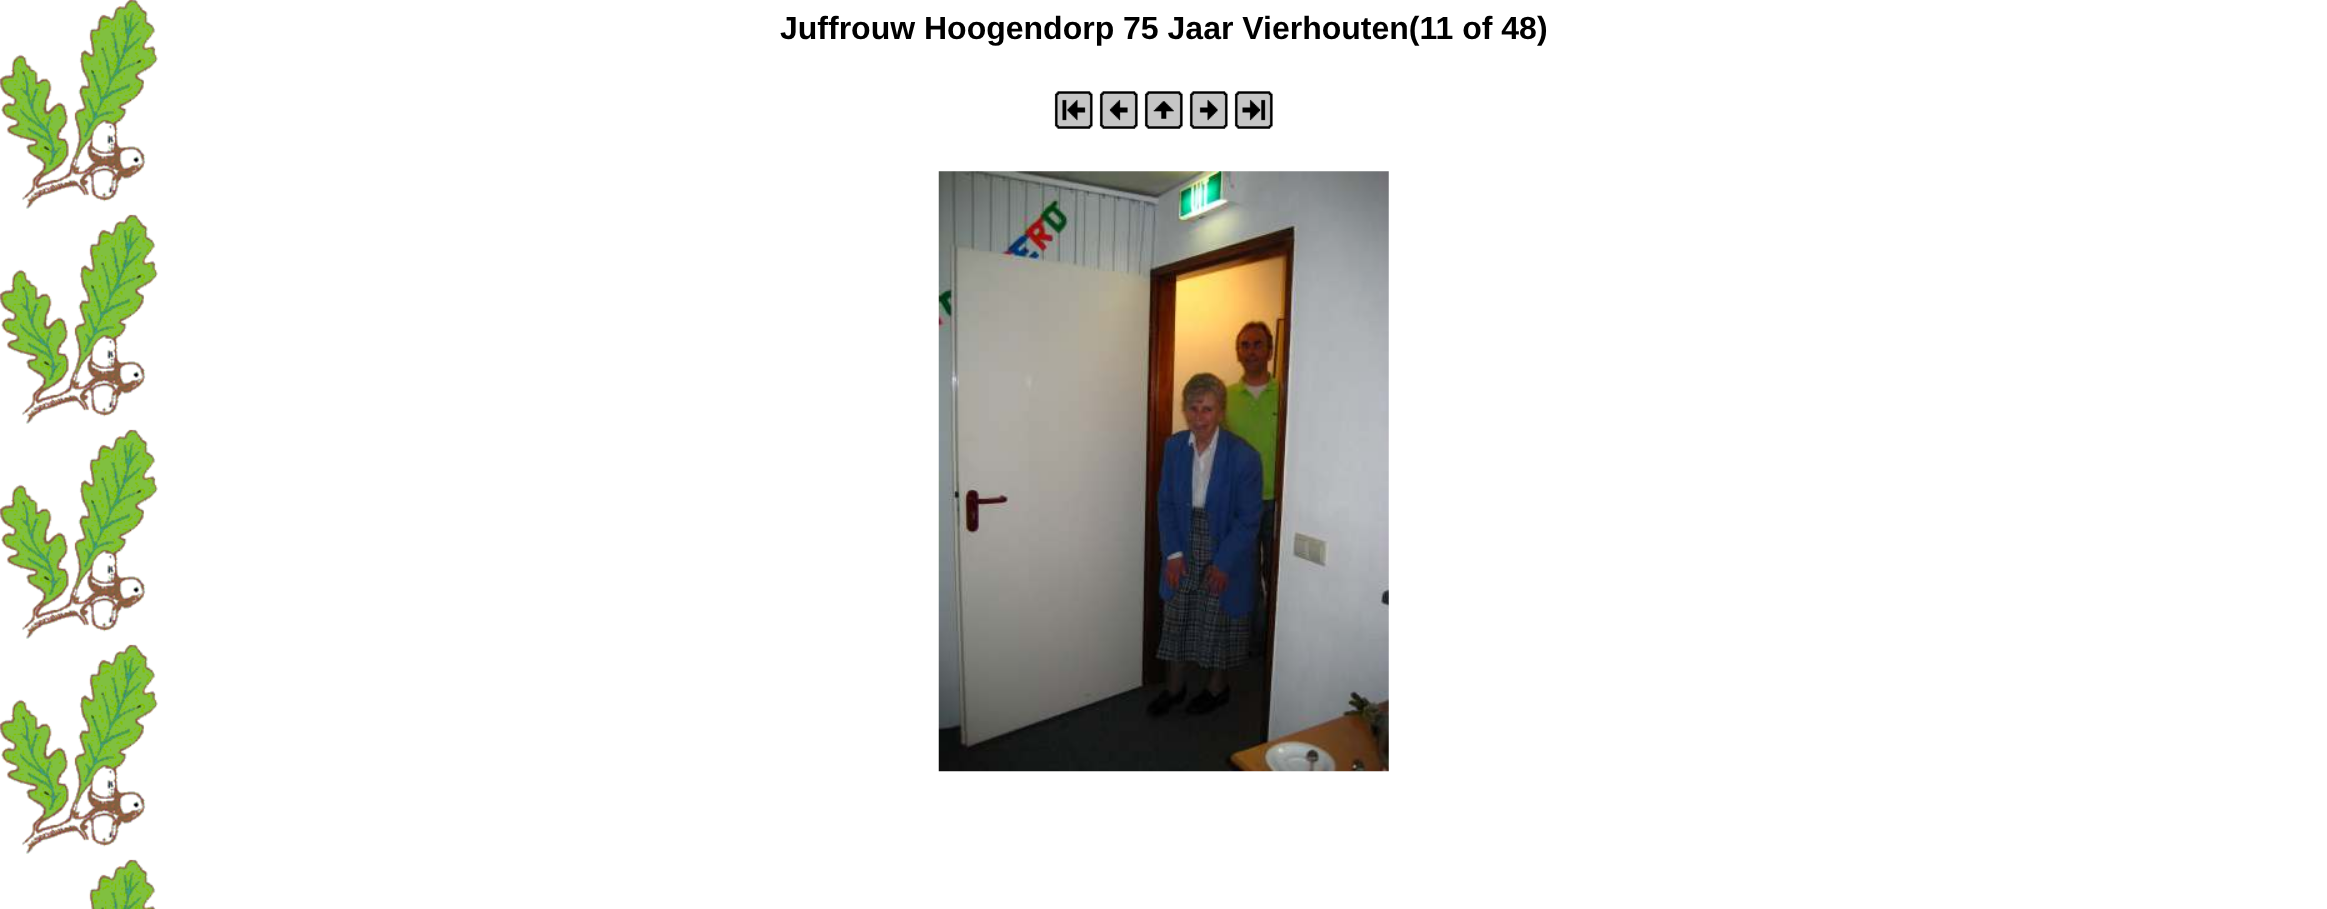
<?xml version="1.0" encoding="UTF-8"?>
<svg xmlns="http://www.w3.org/2000/svg" xmlns:xlink="http://www.w3.org/1999/xlink" width="2327" height="909">
  <rect width="100%" height="100%" fill="#ffffff" />
  <image x="0" y="0" width="158" height="909" xlink:href="image1.png" />
  <image x="1054" y="91" width="39" height="38" xlink:href="image2.png" />
  <image x="1099" y="91" width="39" height="38" xlink:href="image3.png" />
  <image x="1144" y="91" width="39" height="38" xlink:href="image4.png" />
  <image x="1189" y="91" width="39" height="38" xlink:href="image5.png" />
  <image x="1234" y="91" width="39" height="38" xlink:href="image6.png" />
  <image x="938" y="171" width="451" height="601" xlink:href="image7.png" />
  <text x="780" y="39" style="font-family: Liberation Sans; font-size: 32px; font-weight: bold; fill: #000000">Juffrouw Hoogendorp 75 Jaar Vierhouten(11 of 48)</text>
</svg>
